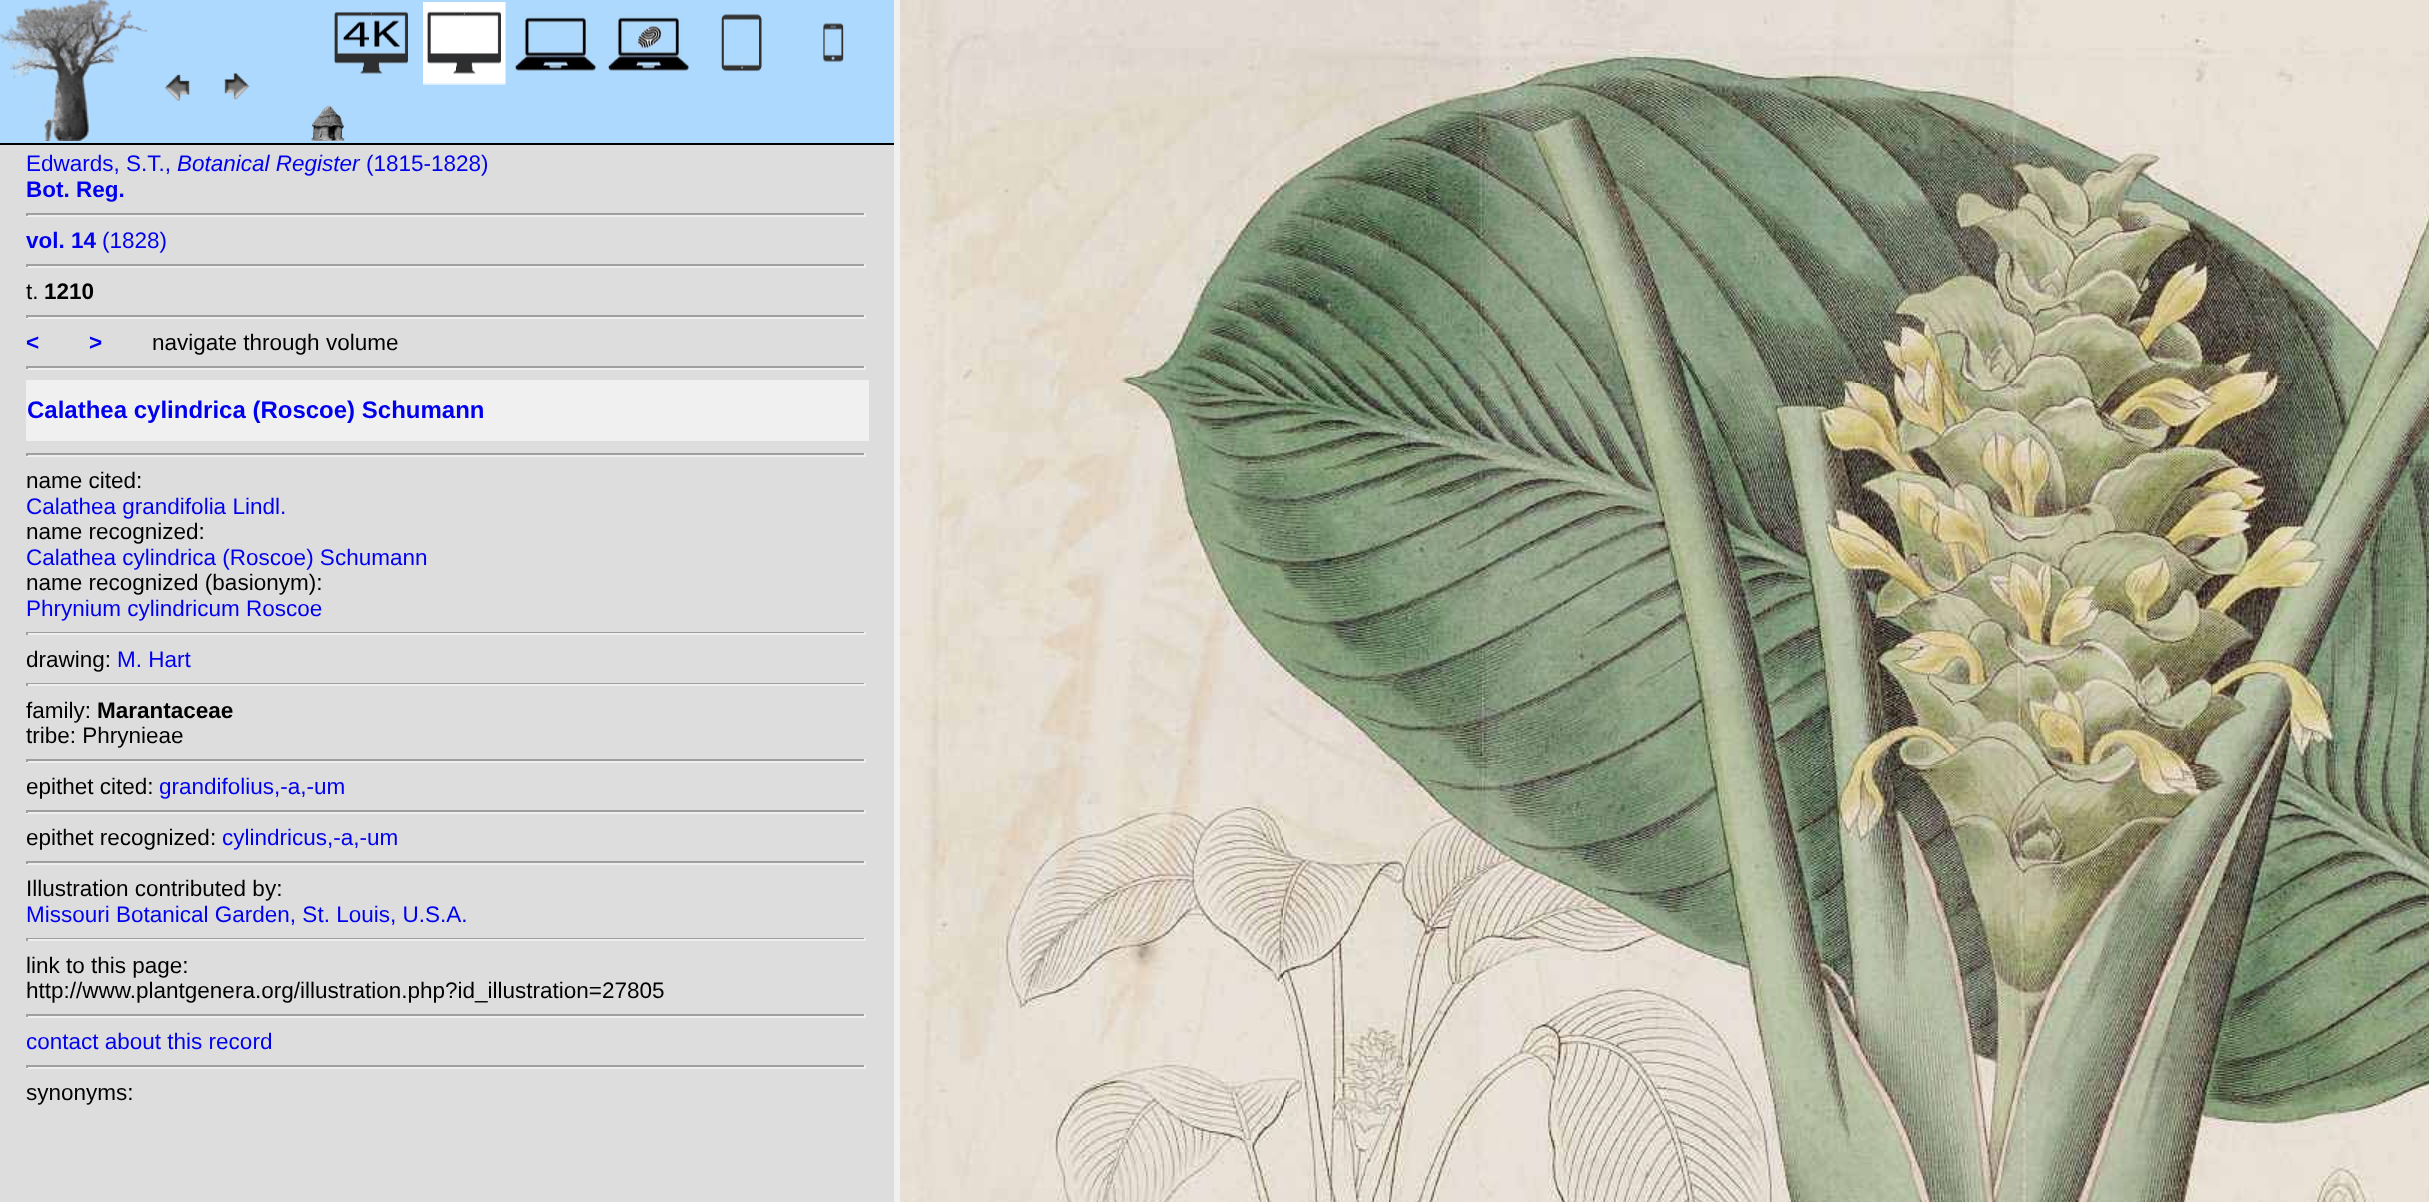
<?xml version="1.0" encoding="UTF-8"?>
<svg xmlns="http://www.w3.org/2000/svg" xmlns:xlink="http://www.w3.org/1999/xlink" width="2429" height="1202">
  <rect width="100%" height="100%" fill="#f0f0f0" />
  <rect y="145" width="894" height="1057" fill="#dddddd" />
  <rect width="894" height="143" fill="#add9fe" />
  <rect y="143" width="894" height="2" fill="#000000" />
  <image x="0" y="0" width="150" height="141" xlink:href="image1.png" />
  <image x="164" y="74" width="26" height="27" xlink:href="image2.png" />
  <image x="224" y="73" width="26" height="27" xlink:href="image3.png" />
  <image x="333" y="11" width="75" height="63" xlink:href="image4.png" />
  <image x="423" y="2" width="83" height="83" xlink:href="image5.png" />
  <image x="514" y="14" width="83" height="57" xlink:href="image6.png" />
  <image x="607" y="14" width="83" height="57" xlink:href="image7.png" />
  <image x="721" y="14" width="41" height="58" xlink:href="image8.png" />
  <image x="823" y="23" width="21" height="40" xlink:href="image9.png" />
  <image x="311" y="105" width="34" height="36" xlink:href="image10.png" />
  <rect x="26" y="213" width="840" height="2" fill="#9f9f9f" />
  <rect x="864" y="213" width="2" height="3" fill="#eeeeee" />
  <rect x="26" y="215" width="840" height="2" fill="#eeeeee" />
  <rect x="26" y="213" width="2" height="3" fill="#9f9f9f" />
  <rect x="26" y="264" width="840" height="2" fill="#9f9f9f" />
  <rect x="864" y="264" width="2" height="3" fill="#eeeeee" />
  <rect x="26" y="266" width="840" height="2" fill="#eeeeee" />
  <rect x="26" y="264" width="2" height="3" fill="#9f9f9f" />
  <rect x="26" y="315" width="840" height="2" fill="#9f9f9f" />
  <rect x="864" y="315" width="2" height="3" fill="#eeeeee" />
  <rect x="26" y="317" width="840" height="2" fill="#eeeeee" />
  <rect x="26" y="315" width="2" height="3" fill="#9f9f9f" />
  <rect x="26" y="366" width="840" height="2" fill="#9f9f9f" />
  <rect x="864" y="366" width="2" height="3" fill="#eeeeee" />
  <rect x="26" y="368" width="840" height="2" fill="#eeeeee" />
  <rect x="26" y="366" width="2" height="3" fill="#9f9f9f" />
  <rect x="26" y="380" width="843" height="61" fill="#f0f0f0" />
  <rect x="26" y="453" width="840" height="2" fill="#9f9f9f" />
  <rect x="864" y="453" width="2" height="3" fill="#eeeeee" />
  <rect x="26" y="455" width="840" height="2" fill="#eeeeee" />
  <rect x="26" y="453" width="2" height="3" fill="#9f9f9f" />
  <rect x="26" y="632" width="840" height="1" fill="#9f9f9f" />
  <rect x="864" y="632" width="2" height="3" fill="#eeeeee" />
  <rect x="26" y="633" width="840" height="2" fill="#eeeeee" />
  <rect x="26" y="632" width="2" height="3" fill="#9f9f9f" />
  <rect x="26" y="683" width="840" height="1" fill="#9f9f9f" />
  <rect x="864" y="683" width="2" height="3" fill="#eeeeee" />
  <rect x="26" y="684" width="840" height="2" fill="#eeeeee" />
  <rect x="26" y="683" width="2" height="3" fill="#9f9f9f" />
  <rect x="26" y="759" width="840" height="2" fill="#9f9f9f" />
  <rect x="864" y="759" width="2" height="3" fill="#eeeeee" />
  <rect x="26" y="761" width="840" height="2" fill="#eeeeee" />
  <rect x="26" y="759" width="2" height="3" fill="#9f9f9f" />
  <rect x="26" y="810" width="840" height="2" fill="#9f9f9f" />
  <rect x="864" y="810" width="2" height="3" fill="#eeeeee" />
  <rect x="26" y="812" width="840" height="2" fill="#eeeeee" />
  <rect x="26" y="810" width="2" height="3" fill="#9f9f9f" />
  <rect x="26" y="861" width="840" height="2" fill="#9f9f9f" />
  <rect x="864" y="861" width="2" height="3" fill="#eeeeee" />
  <rect x="26" y="863" width="840" height="2" fill="#eeeeee" />
  <rect x="26" y="861" width="2" height="3" fill="#9f9f9f" />
  <rect x="26" y="938" width="840" height="1" fill="#9f9f9f" />
  <rect x="864" y="938" width="2" height="3" fill="#eeeeee" />
  <rect x="26" y="939" width="840" height="2" fill="#eeeeee" />
  <rect x="26" y="938" width="2" height="3" fill="#9f9f9f" />
  <rect x="26" y="1014" width="840" height="2" fill="#9f9f9f" />
  <rect x="864" y="1014" width="2" height="3" fill="#eeeeee" />
  <rect x="26" y="1016" width="840" height="2" fill="#eeeeee" />
  <rect x="26" y="1014" width="2" height="3" fill="#9f9f9f" />
  <rect x="26" y="1065" width="840" height="2" fill="#9f9f9f" />
  <rect x="864" y="1065" width="2" height="3" fill="#eeeeee" />
  <rect x="26" y="1067" width="840" height="2" fill="#eeeeee" />
  <rect x="26" y="1065" width="2" height="3" fill="#9f9f9f" />
  <image x="900" y="0" width="1529" height="1202" xlink:href="image11.png" />
  <text x="26" y="171" style="font-family: Liberation Sans; font-size: 22.5px; fill: #0000ee">Edwards, S.T.,</text>
  <text x="177" y="171" style="font-family: Liberation Sans; font-size: 22.5px; font-style: italic; fill: #0000ee">Botanical Register</text>
  <text x="366" y="171" style="font-family: Liberation Sans; font-size: 22.5px; fill: #0000ee">(1815-1828)</text>
  <text x="26" y="197" style="font-family: Liberation Sans; font-size: 22.5px; font-weight: bold; fill: #0000ee">Bot. Reg.</text>
  <text x="26" y="248" style="font-family: Liberation Sans; font-size: 22.5px; font-weight: bold; fill: #0000ee">vol. 14</text>
  <text x="102" y="248" style="font-family: Liberation Sans; font-size: 22.5px; fill: #0000ee">(1828)</text>
  <text x="26" y="299" style="font-family: Liberation Sans; font-size: 22.5px; fill: #000000">t.</text>
  <text x="44" y="299" style="font-family: Liberation Sans; font-size: 22.5px; font-weight: bold; fill: #000000">1210</text>
  <text x="26" y="350" style="font-family: Liberation Sans; font-size: 22.5px; font-weight: bold; fill: #0000ee">&lt;</text>
  <text x="89" y="350" style="font-family: Liberation Sans; font-size: 22.5px; font-weight: bold; fill: #0000ee">&gt;</text>
  <text x="152" y="350" style="font-family: Liberation Sans; font-size: 22.5px; fill: #000000">navigate through volume</text>
  <text x="27" y="418" style="font-family: Liberation Sans; font-size: 24px; font-weight: bold; fill: #0000ee">Calathea cylindrica (Roscoe) Schumann</text>
  <text x="26" y="488" style="font-family: Liberation Sans; font-size: 22.5px; fill: #000000">name cited:</text>
  <text x="26" y="514" style="font-family: Liberation Sans; font-size: 22.5px; fill: #0000ee">Calathea grandifolia Lindl.</text>
  <text x="26" y="539" style="font-family: Liberation Sans; font-size: 22.5px; fill: #000000">name recognized:</text>
  <text x="26" y="565" style="font-family: Liberation Sans; font-size: 22.5px; fill: #0000ee">Calathea cylindrica (Roscoe) Schumann</text>
  <text x="26" y="590" style="font-family: Liberation Sans; font-size: 22.5px; fill: #000000">name recognized (basionym):</text>
  <text x="26" y="616" style="font-family: Liberation Sans; font-size: 22.5px; fill: #0000ee">Phrynium cylindricum Roscoe</text>
  <text x="26" y="667" style="font-family: Liberation Sans; font-size: 22.5px; fill: #000000">drawing:</text>
  <text x="117" y="667" style="font-family: Liberation Sans; font-size: 22.5px; fill: #0000ee">M. Hart</text>
  <text x="26" y="718" style="font-family: Liberation Sans; font-size: 22.5px; fill: #000000">family:</text>
  <text x="97" y="718" style="font-family: Liberation Sans; font-size: 22.5px; font-weight: bold; fill: #000000">Marantaceae</text>
  <text x="26" y="743" style="font-family: Liberation Sans; font-size: 22.5px; fill: #000000">tribe: Phrynieae</text>
  <text x="26" y="794" style="font-family: Liberation Sans; font-size: 22.5px; fill: #000000">epithet cited:</text>
  <text x="159" y="794" style="font-family: Liberation Sans; font-size: 22.5px; fill: #0000ee">grandifolius,-a,-um</text>
  <text x="26" y="845" style="font-family: Liberation Sans; font-size: 22.5px; fill: #000000">epithet recognized:</text>
  <text x="222" y="845" style="font-family: Liberation Sans; font-size: 22.5px; fill: #0000ee">cylindricus,-a,-um</text>
  <text x="26" y="896" style="font-family: Liberation Sans; font-size: 22.5px; fill: #000000">Illustration contributed by:</text>
  <text x="26" y="922" style="font-family: Liberation Sans; font-size: 22.5px; fill: #0000ee">Missouri Botanical Garden, St. Louis, U.S.A.</text>
  <text x="26" y="973" style="font-family: Liberation Sans; font-size: 22.5px; fill: #000000">link to this page:</text>
  <text x="26" y="998" style="font-family: Liberation Sans; font-size: 22.5px; fill: #000000">http://www.plantgenera.org/illustration.php?id_illustration=27805</text>
  <text x="26" y="1049" style="font-family: Liberation Sans; font-size: 22.5px; fill: #0000ee">contact about this record</text>
  <text x="26" y="1100" style="font-family: Liberation Sans; font-size: 22.5px; fill: #000000">synonyms:</text>
</svg>
